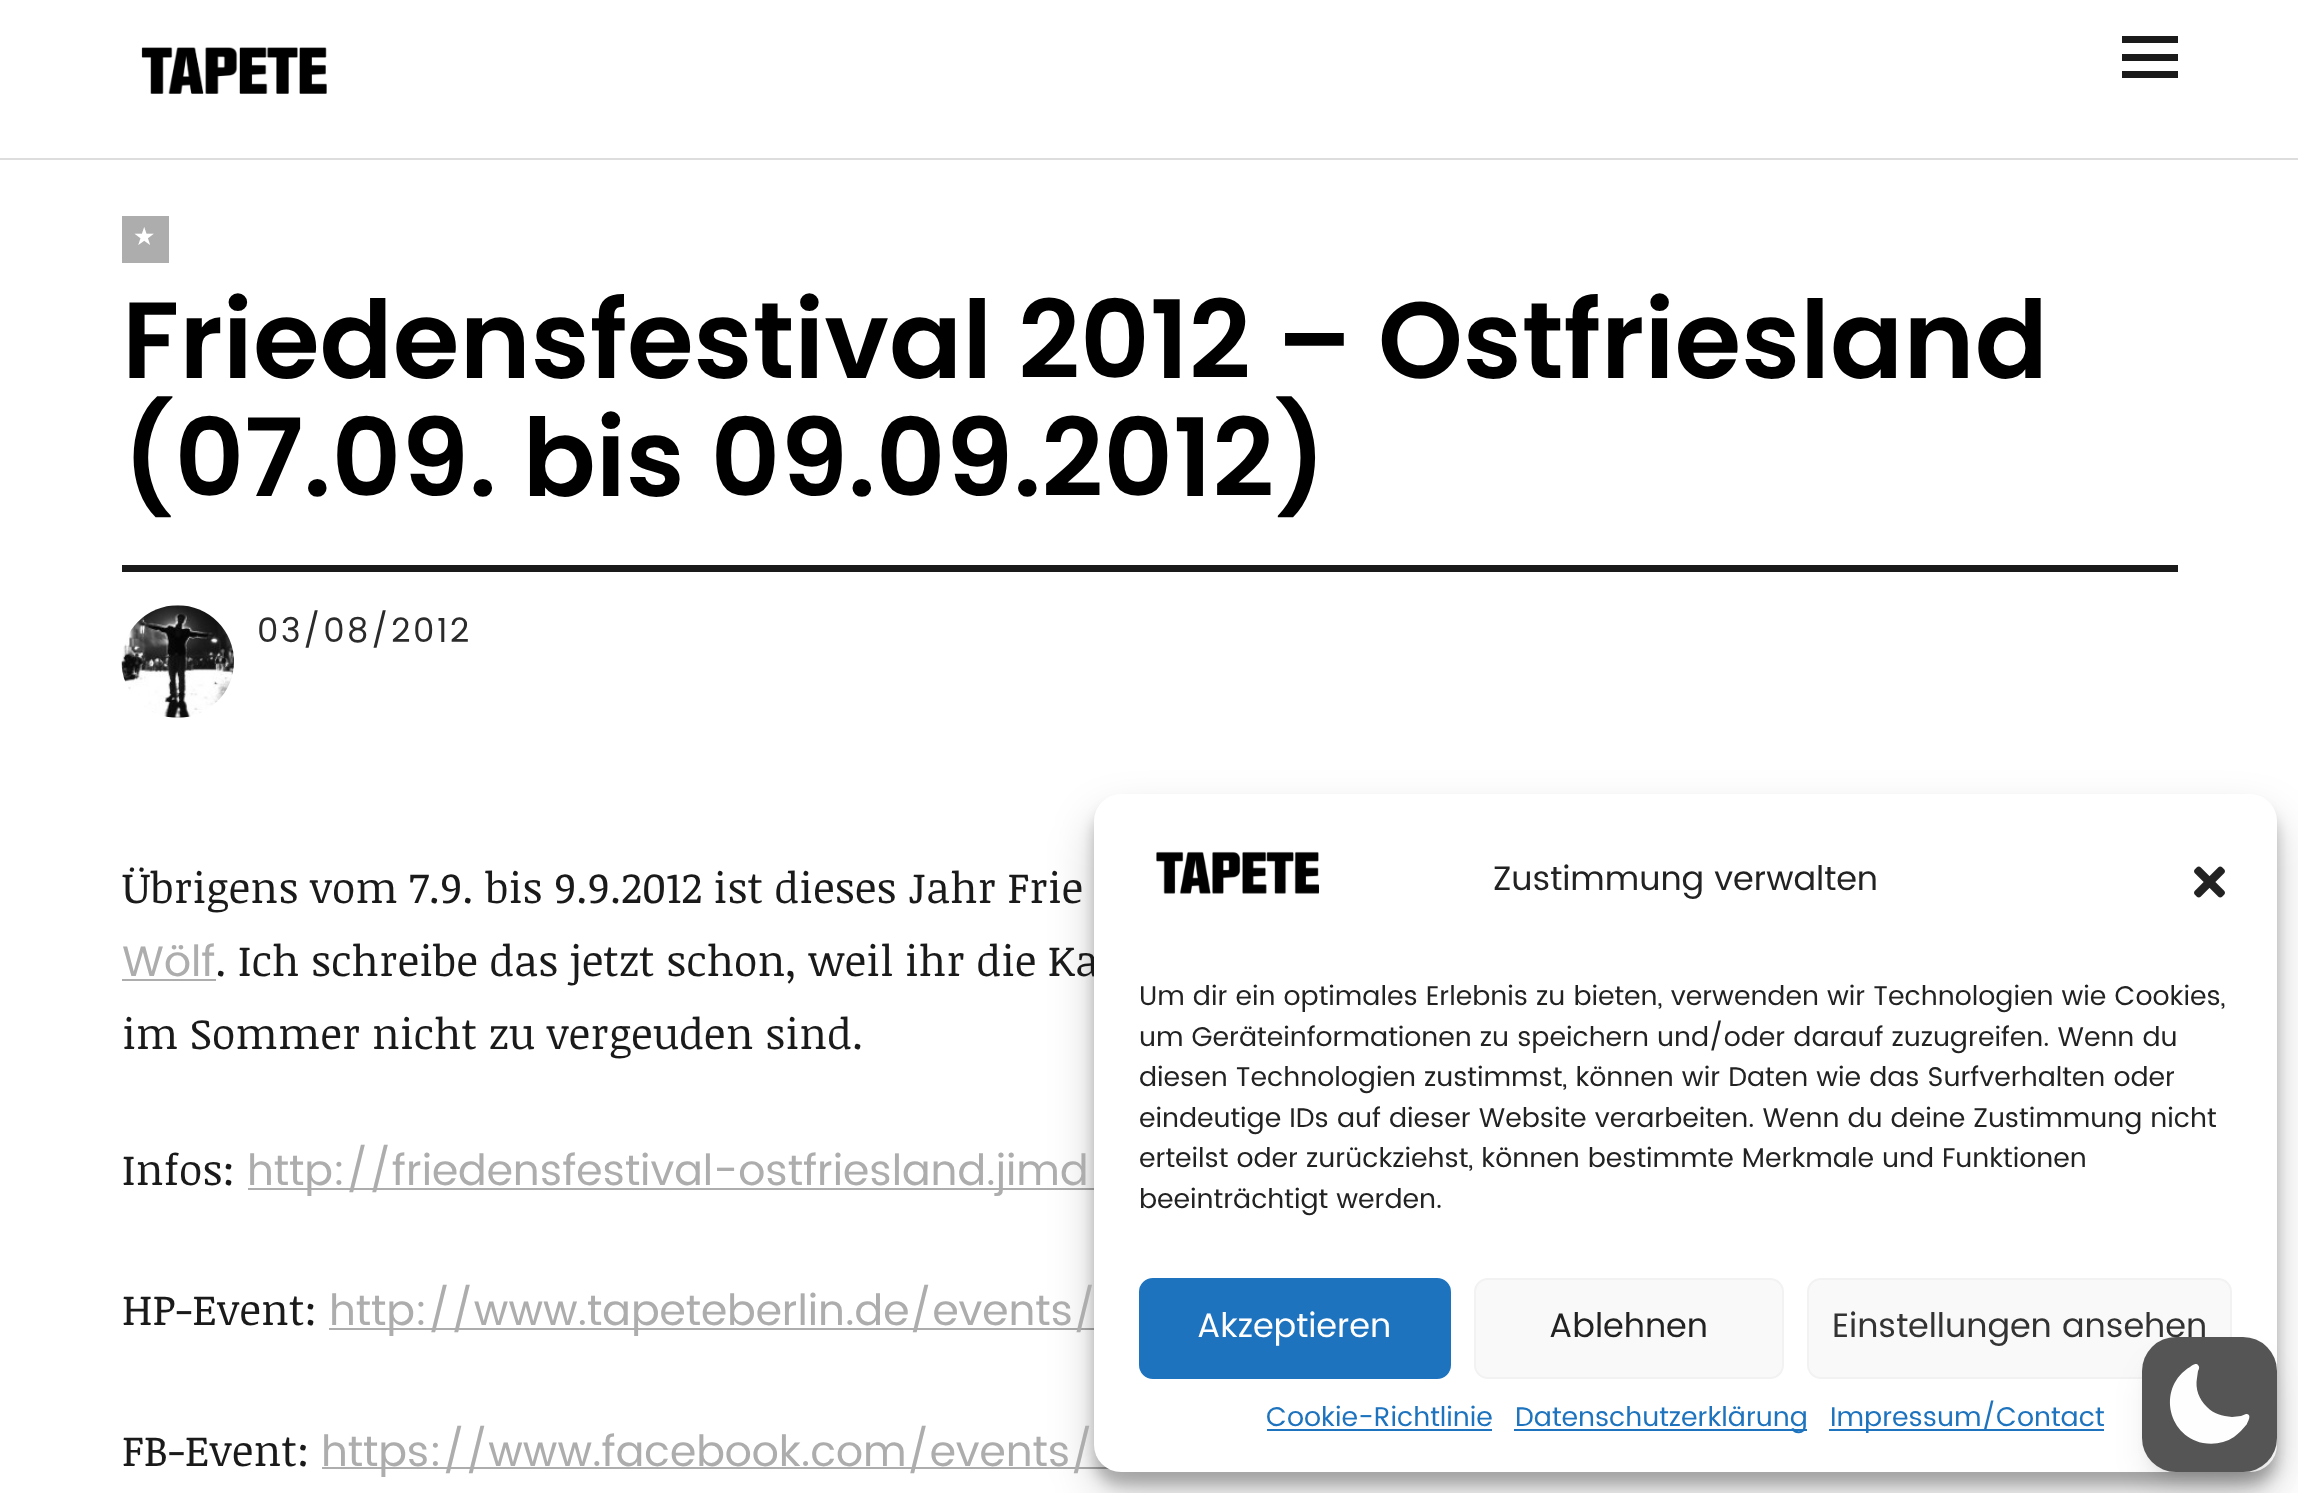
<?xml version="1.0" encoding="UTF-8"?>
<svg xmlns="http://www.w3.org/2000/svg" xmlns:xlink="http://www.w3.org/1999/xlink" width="2298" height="1493">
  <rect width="100%" height="100%" fill="#ffffff" />
  <rect y="158" width="2298" height="2" fill="#dddddd" />
  <image x="141" y="47" width="186" height="47" xlink:href="image1.png" />
  <path d="M 2122 78 v -7 h 56 v 7 z m 0 -42 h 56 v 7 h -56 z m 0 25 v -7 h 56 v 7 z" fill="#1a1a1a" />
  <rect x="122" y="216" width="47" height="47" fill="#adadad" />
  <rect x="122" y="565" width="2056" height="7" fill="#1a1a1a" />
  <image x="121" y="605" width="113" height="113" xlink:href="image2.png" />
  <rect x="122" y="979" width="94" height="2" fill="#adadad" />
  <rect x="248" y="1188" width="846" height="2" fill="#adadad" />
  <rect x="329" y="1328" width="765" height="2" fill="#adadad" />
  <rect x="322" y="1467" width="787" height="2" fill="#adadad" />
  <rect x="1094" y="808" width="1183" height="677" rx="27" fill="#000000" fill-opacity="0.23" filter="blur(7px)" />
  <rect x="1094" y="817" width="1183" height="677" rx="27" fill="#000000" fill-opacity="0.19" filter="blur(22.5px)" />
  <text x="133" y="245" style="font-family: DejaVu Sans; font-size: 25px; letter-spacing: 2.25px; fill: #ffffff">★</text>
  <text x="122" y="378" style="font-family: Poppins; font-size: 108px; font-weight: 600; fill: #000000">Friedensfestival 2012 – Ostfriesland</text>
  <text x="122" y="496" style="font-family: Poppins; font-size: 108px; font-weight: 600; fill: #000000">(07.09. bis 09.09.2012)</text>
  <text x="257" y="642" style="font-family: Poppins; font-size: 33.75px; letter-spacing: 2.25px; fill: #2b2b2b">03/08/2012</text>
  <text x="122" y="903" style="font-family: Noticia Text; font-size: 42.75px; fill: #1a1a1a">Übrigens vom 7.9. bis 9.9.2012 ist dieses Jahr Frie</text>
  <text x="122" y="976" style="font-family: Poppins; font-size: 42.75px; fill: #adadad">Wölf</text>
  <text x="215" y="976" style="font-family: Noticia Text; font-size: 42.75px; fill: #1a1a1a">. Ich schreibe das jetzt schon, weil ihr die Ka</text>
  <text x="122" y="1049" style="font-family: Noticia Text; font-size: 42.75px; fill: #1a1a1a">im Sommer nicht zu vergeuden sind.</text>
  <text x="122" y="1185" style="font-family: Noticia Text; font-size: 42.75px; fill: #1a1a1a">Infos:</text>
  <text x="247" y="1185" style="font-family: Poppins; font-size: 42.75px; fill: #adadad">http://friedensfestival-ostfriesland.jimd</text>
  <text x="122" y="1325" style="font-family: Noticia Text; font-size: 42.75px; fill: #1a1a1a">HP-Event:</text>
  <text x="329" y="1325" style="font-family: Poppins; font-size: 42.75px; fill: #adadad">http://www.tapeteberlin.de/events/</text>
  <text x="122" y="1466" style="font-family: Noticia Text; font-size: 42.75px; fill: #1a1a1a">FB-Event:</text>
  <text x="321" y="1466" style="font-family: Poppins; font-size: 42.75px; fill: #adadad">https://www.facebook.com/events/</text>
  <rect x="1094" y="794" width="1183" height="678" rx="27" fill="#ffffff" />
  <image x="1156" y="851" width="164" height="43" xlink:href="image3.png" />
  <text x="1493" y="890" style="font-family: Poppins; font-size: 33.75px; fill: #222222">Zustimmung verwalten</text>
  <image x="2194" y="866" width="31" height="32" xlink:href="image4.png" />
  <text x="1139" y="1005" style="font-family: Poppins; font-size: 27px; fill: #222222">Um dir ein optimales Erlebnis zu bieten, verwenden wir Technologien wie Cookies,</text>
  <text x="1139" y="1046" style="font-family: Poppins; font-size: 27px; fill: #222222">um Geräteinformationen zu speichern und/oder darauf zuzugreifen. Wenn du</text>
  <text x="1139" y="1086" style="font-family: Poppins; font-size: 27px; fill: #222222">diesen Technologien zustimmst, können wir Daten wie das Surfverhalten oder</text>
  <text x="1139" y="1127" style="font-family: Poppins; font-size: 27px; fill: #222222">eindeutige IDs auf dieser Website verarbeiten. Wenn du deine Zustimmung nicht</text>
  <text x="1139" y="1167" style="font-family: Poppins; font-size: 27px; fill: #222222">erteilst oder zurückziehst, können bestimmte Merkmale und Funktionen</text>
  <text x="1139" y="1208" style="font-family: Poppins; font-size: 27px; fill: #222222">beeinträchtigt werden.</text>
  <rect x="1140" y="1279" width="310" height="99" rx="13" fill="#1e73be" stroke="#1e73be" stroke-width="2" />
  <text x="1197" y="1337" style="font-family: Poppins; font-size: 33.75px; fill: #ffffff">Akzeptieren</text>
  <rect x="1475" y="1279" width="308" height="99" rx="13" fill="#f9f9f9" stroke="#f2f2f2" stroke-width="2" />
  <text x="1549" y="1337" style="font-family: Poppins; font-size: 33.75px; fill: #222222">Ablehnen</text>
  <rect x="1808" y="1279" width="423" height="99" rx="13" fill="#f9f9f9" stroke="#f2f2f2" stroke-width="2" />
  <text x="1832" y="1337" style="font-family: Poppins; font-size: 33.75px; fill: #333333">Einstellungen ansehen</text>
  <text x="1266" y="1426" style="font-family: Poppins; font-size: 27px; fill: #1e73be">Cookie-Richtlinie</text>
  <rect x="1267" y="1429" width="225" height="2" fill="#1e73be" />
  <rect x="1514" y="1429" width="293" height="2" fill="#1e73be" />
  <text x="1515" y="1426" style="font-family: Poppins; font-size: 27px; fill: #1e73be">Datenschutzerklärung</text>
  <rect x="1829" y="1429" width="275" height="2" fill="#1e73be" />
  <text x="1830" y="1426" style="font-family: Poppins; font-size: 27px; fill: #1e73be">Impressum/Contact</text>
  <rect x="2151" y="1355" width="117" height="117" rx="25" fill="#000000" fill-opacity="0.1" filter="blur(7px)" />
  <rect x="2149" y="1366" width="121" height="121" rx="27" fill="#000000" fill-opacity="0.1" filter="blur(17px)" />
  <rect x="2142" y="1337" width="135" height="135" rx="34" fill="#555555" />
  <path d="M 2198 1365 c 2 2 1 4 0 6 l -1 7 c -2 11 2 21 10 29 c 7 7 15 9 25 10 l 9 -1 l 5 -2 c 7 0 1 9 1 10 c -4 5 -8 9 -13 13 c -9 6 -20 8 -31 6 c -37 -8 -45 -57 -13 -76 c 1 -1 6 -5 8 -2 z" fill="#fefefe" fill-rule="evenodd" />
</svg>
